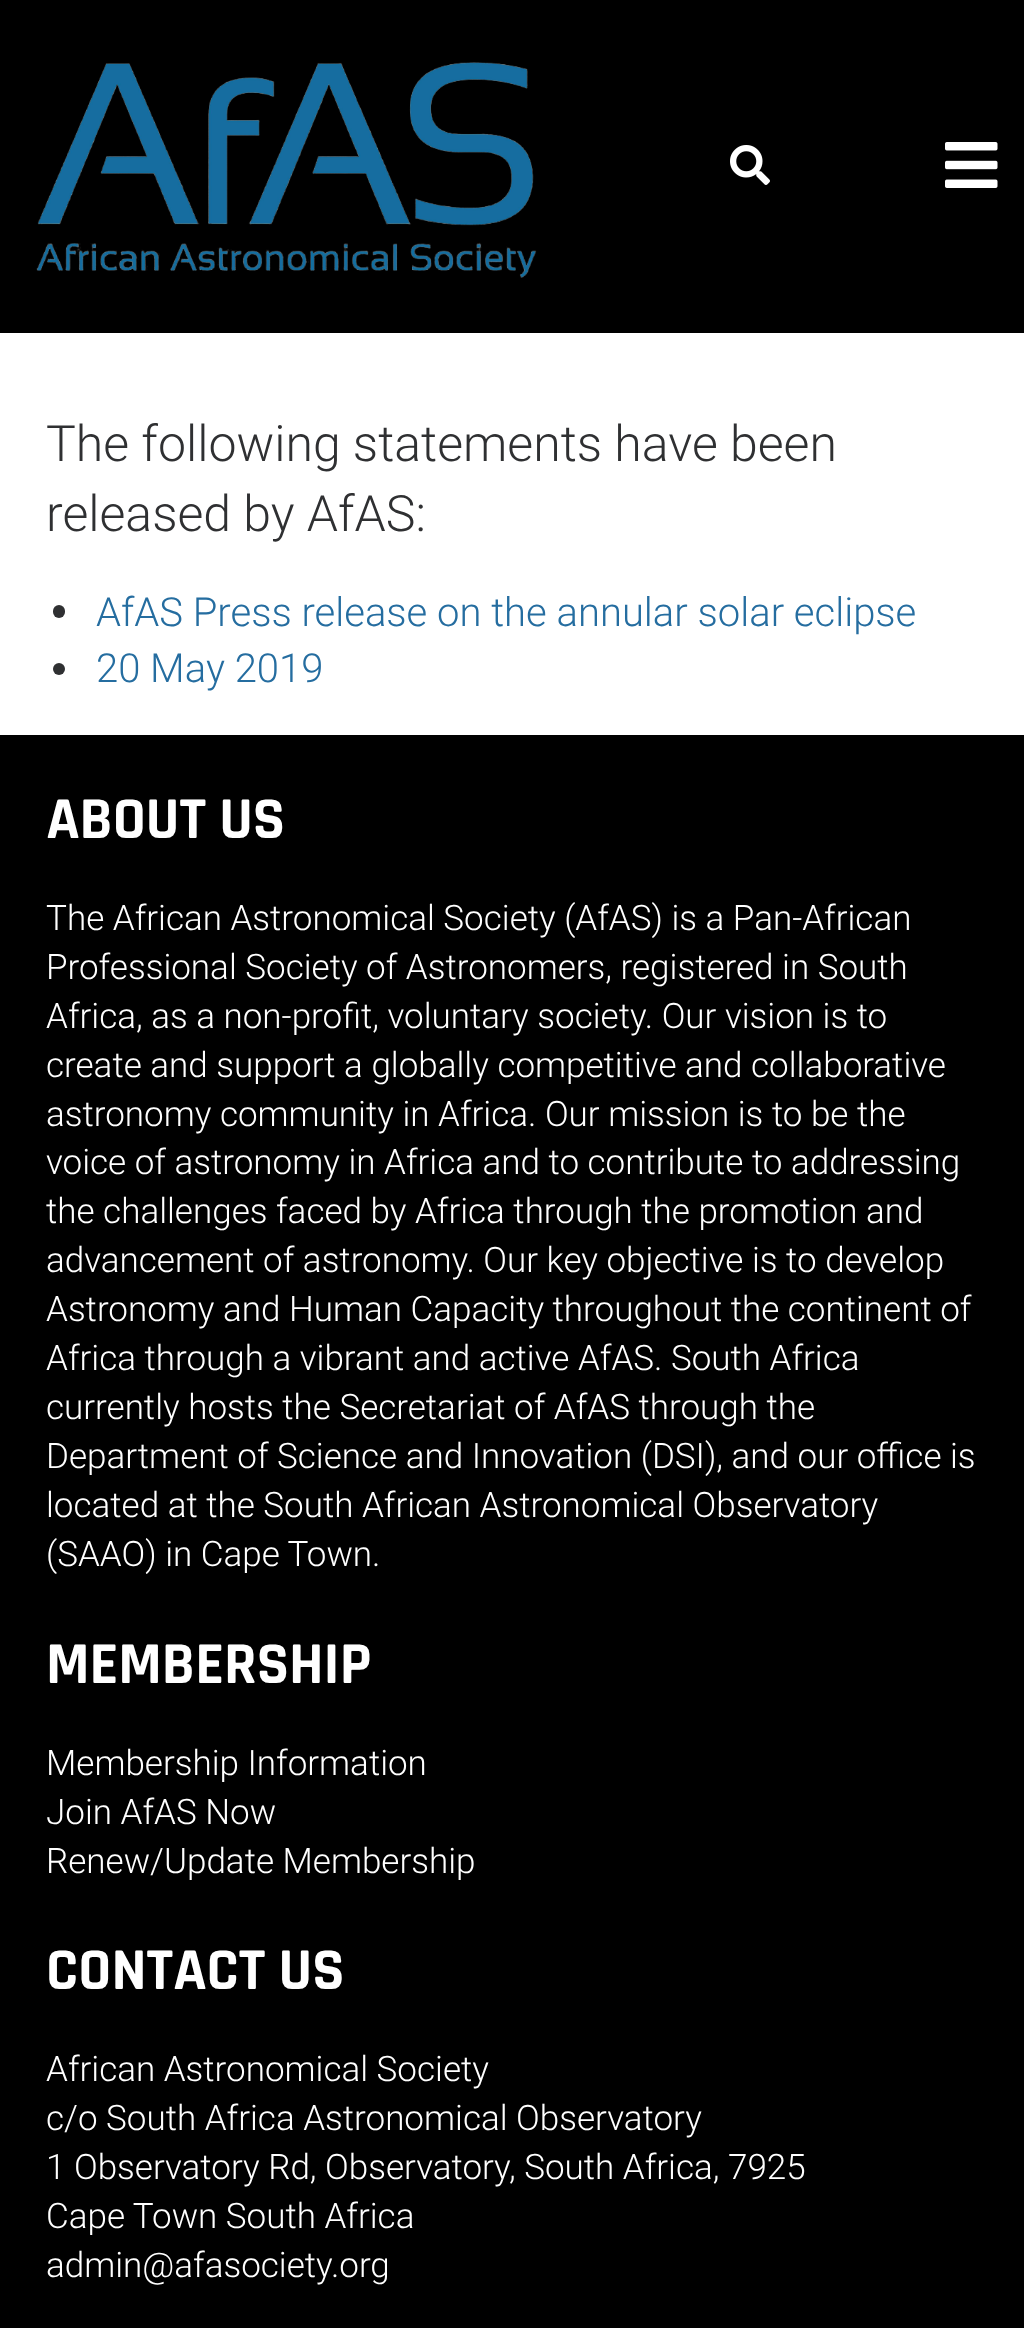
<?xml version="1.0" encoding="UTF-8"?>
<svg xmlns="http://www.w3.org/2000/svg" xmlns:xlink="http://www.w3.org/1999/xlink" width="1024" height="2328">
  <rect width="100%" height="100%" fill="#ffffff" />
  <rect width="1024" height="333" fill="#000000" />
  <image x="36" y="62" width="501" height="216" xlink:href="image1.png" />
  <image x="730" y="145" width="40" height="40" xlink:href="image2.png" />
  <image x="945" y="142" width="53" height="46" xlink:href="image3.png" />
  <rect x="53" y="605" width="12" height="13" rx="6" fill="#2f3032" />
  <circle cx="59" cy="669" r="6" fill="#2f3032" />
  <rect y="735" width="1024" height="1593" fill="#000000" />
  <text x="46" y="461" style="font-family: Roboto; font-size: 50px; font-weight: 300; fill: #2f3032">The following statements have been</text>
  <text x="46" y="531" style="font-family: Roboto; font-size: 50px; font-weight: 300; fill: #2f3032">released by AfAS:</text>
  <text x="96" y="626" style="font-family: Roboto; font-size: 40px; font-weight: 300; fill: #256da0">AfAS Press release on the annular solar eclipse</text>
  <text x="96" y="682" style="font-family: Roboto; font-size: 40px; font-weight: 300; fill: #256da0">20 May 2019</text>
  <text x="46" y="838" style="font-family: Rajdhani; font-size: 60px; font-weight: bold; fill: #ffffff">ABOUT US</text>
  <text x="46" y="930" style="font-family: Roboto; font-size: 35px; font-weight: 300; fill: #ffffff">The African Astronomical Society (AfAS) is a Pan-African</text>
  <text x="46" y="979" style="font-family: Roboto; font-size: 35px; font-weight: 300; fill: #ffffff">Professional Society of Astronomers, registered in South</text>
  <text x="46" y="1028" style="font-family: Roboto; font-size: 35px; font-weight: 300; fill: #ffffff">Africa, as a non-profit, voluntary society. Our vision is to</text>
  <text x="46" y="1077" style="font-family: Roboto; font-size: 35px; font-weight: 300; fill: #ffffff">create and support a globally competitive and collaborative</text>
  <text x="46" y="1126" style="font-family: Roboto; font-size: 35px; font-weight: 300; fill: #ffffff">astronomy community in Africa. Our mission is to be the</text>
  <text x="46" y="1174" style="font-family: Roboto; font-size: 35px; font-weight: 300; fill: #ffffff">voice of astronomy in Africa and to contribute to addressing</text>
  <text x="46" y="1223" style="font-family: Roboto; font-size: 35px; font-weight: 300; fill: #ffffff">the challenges faced by Africa through the promotion and</text>
  <text x="46" y="1272" style="font-family: Roboto; font-size: 35px; font-weight: 300; fill: #ffffff">advancement of astronomy. Our key objective is to develop</text>
  <text x="46" y="1321" style="font-family: Roboto; font-size: 35px; font-weight: 300; fill: #ffffff">Astronomy and Human Capacity throughout the continent of</text>
  <text x="46" y="1370" style="font-family: Roboto; font-size: 35px; font-weight: 300; fill: #ffffff">Africa through a vibrant and active AfAS. South Africa</text>
  <text x="46" y="1419" style="font-family: Roboto; font-size: 35px; font-weight: 300; fill: #ffffff">currently hosts the Secretariat of AfAS through the</text>
  <text x="46" y="1468" style="font-family: Roboto; font-size: 35px; font-weight: 300; fill: #ffffff">Department of Science and Innovation (DSI), and our office is</text>
  <text x="46" y="1517" style="font-family: Roboto; font-size: 35px; font-weight: 300; fill: #ffffff">located at the South African Astronomical Observatory</text>
  <text x="46" y="1566" style="font-family: Roboto; font-size: 35px; font-weight: 300; fill: #ffffff">(SAAO) in Cape Town.</text>
  <text x="46" y="1683" style="font-family: Rajdhani; font-size: 60px; font-weight: bold; fill: #ffffff">MEMBERSHIP</text>
  <text x="46" y="1775" style="font-family: Roboto; font-size: 35px; font-weight: 300; fill: #ffffff">Membership Information</text>
  <text x="46" y="1824" style="font-family: Roboto; font-size: 35px; font-weight: 300; fill: #ffffff">Join AfAS Now</text>
  <text x="46" y="1873" style="font-family: Roboto; font-size: 35px; font-weight: 300; fill: #ffffff">Renew/Update Membership</text>
  <text x="46" y="1989" style="font-family: Rajdhani; font-size: 60px; font-weight: bold; fill: #ffffff">CONTACT US</text>
  <text x="46" y="2081" style="font-family: Roboto; font-size: 35px; font-weight: 300; fill: #ffffff">African Astronomical Society</text>
  <text x="46" y="2130" style="font-family: Roboto; font-size: 35px; font-weight: 300; fill: #ffffff">c/o South Africa Astronomical Observatory</text>
  <text x="46" y="2179" style="font-family: Roboto; font-size: 35px; font-weight: 300; fill: #ffffff">1 Observatory Rd, Observatory, South Africa, 7925</text>
  <text x="46" y="2228" style="font-family: Roboto; font-size: 35px; font-weight: 300; fill: #ffffff">Cape Town South Africa</text>
  <text x="46" y="2277" style="font-family: Roboto; font-size: 35px; font-weight: 300; fill: #ffffff">admin@afasociety.org</text>
</svg>
